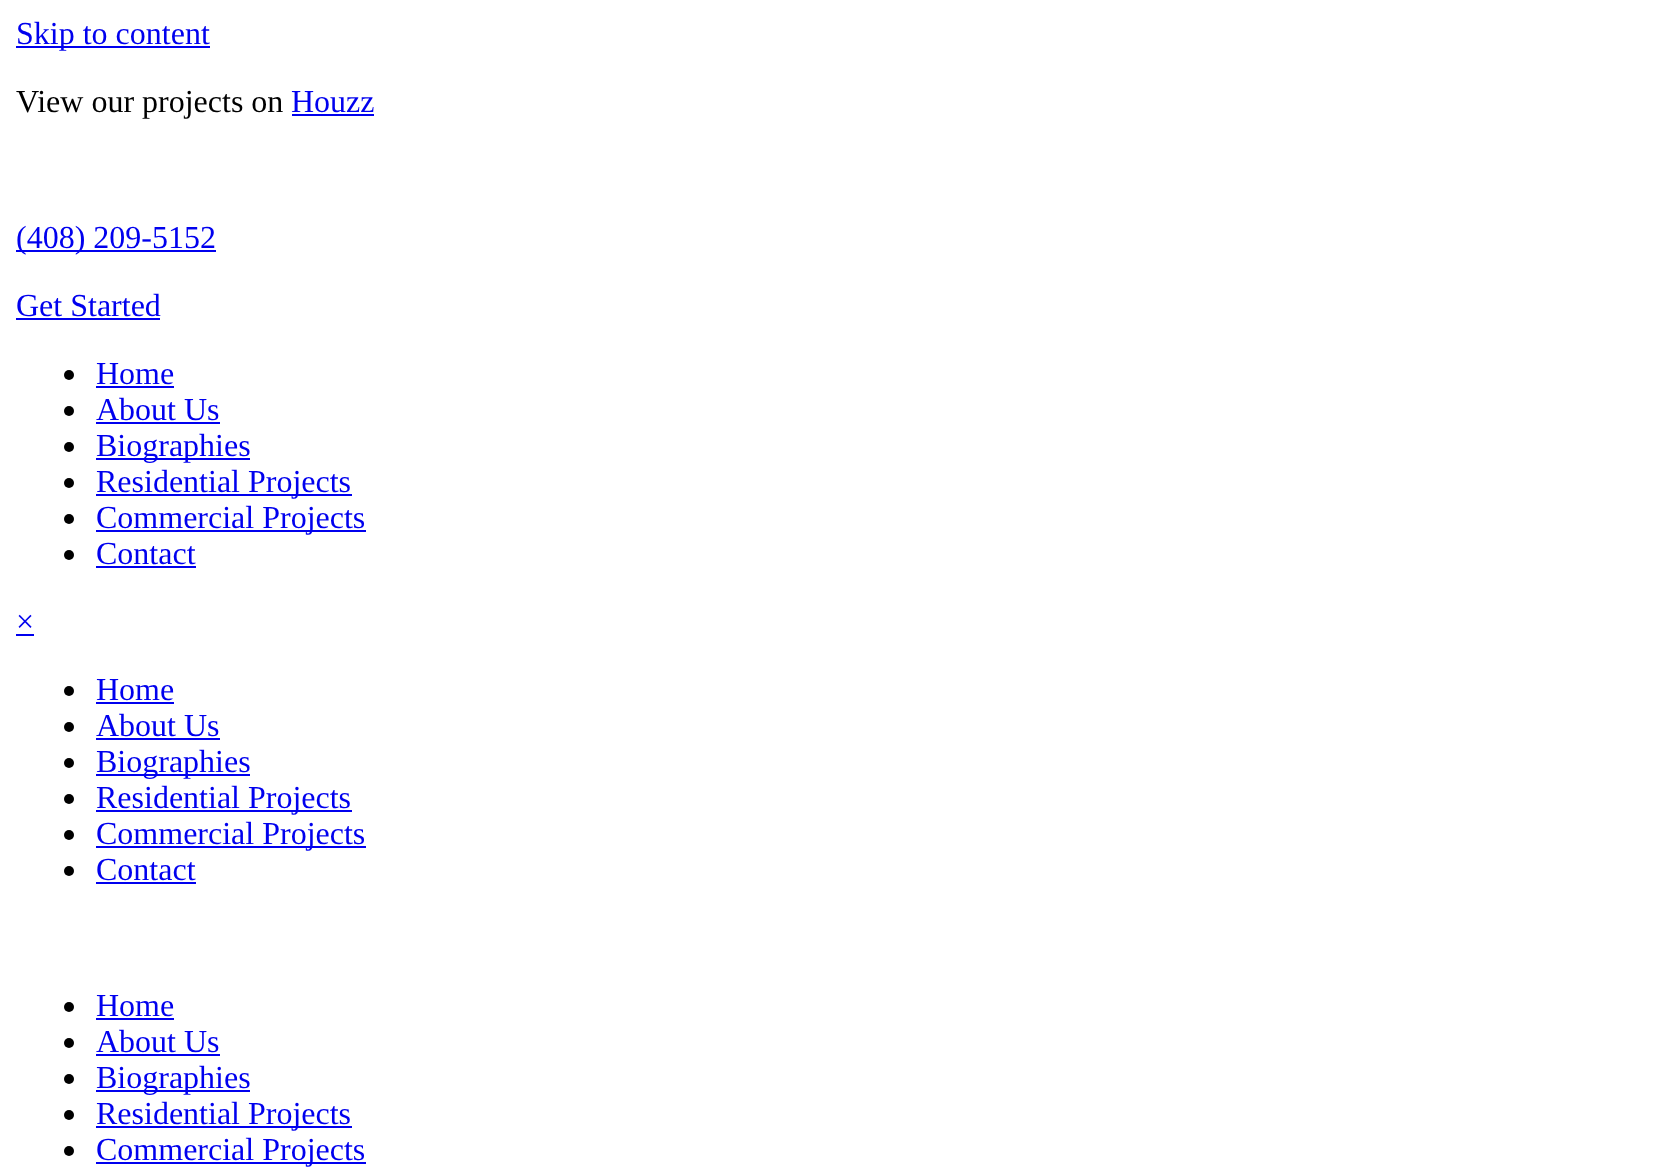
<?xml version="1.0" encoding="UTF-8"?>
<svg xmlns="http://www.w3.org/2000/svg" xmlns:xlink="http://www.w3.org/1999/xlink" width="1662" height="1173">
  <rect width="100%" height="100%" fill="#ffffff" />
  <rect x="16" y="46" width="194" height="2" fill="#0000ee" />
  <rect x="292" y="114" width="82" height="2" fill="#0000ee" />
  <rect x="16" y="250" width="200" height="2" fill="#0000ee" />
  <rect x="16" y="318" width="144" height="2" fill="#0000ee" />
  <circle cx="69" cy="375" r="5" fill="#000000" />
  <rect x="96" y="386" width="78" height="2" fill="#0000ee" />
  <circle cx="69" cy="411" r="5" fill="#000000" />
  <rect x="96" y="422" width="124" height="2" fill="#0000ee" />
  <circle cx="69" cy="447" r="5" fill="#000000" />
  <rect x="96" y="458" width="154" height="2" fill="#0000ee" />
  <circle cx="69" cy="483" r="5" fill="#000000" />
  <rect x="96" y="494" width="256" height="2" fill="#0000ee" />
  <circle cx="69" cy="519" r="5" fill="#000000" />
  <rect x="96" y="530" width="270" height="2" fill="#0000ee" />
  <circle cx="69" cy="555" r="5" fill="#000000" />
  <rect x="96" y="566" width="100" height="2" fill="#0000ee" />
  <rect x="16" y="634" width="18" height="2" fill="#0000ee" />
  <circle cx="69" cy="691" r="5" fill="#000000" />
  <rect x="96" y="702" width="78" height="2" fill="#0000ee" />
  <circle cx="69" cy="727" r="5" fill="#000000" />
  <rect x="96" y="738" width="124" height="2" fill="#0000ee" />
  <circle cx="69" cy="763" r="5" fill="#000000" />
  <rect x="96" y="774" width="154" height="2" fill="#0000ee" />
  <circle cx="69" cy="799" r="5" fill="#000000" />
  <rect x="96" y="810" width="256" height="2" fill="#0000ee" />
  <circle cx="69" cy="835" r="5" fill="#000000" />
  <rect x="96" y="846" width="270" height="2" fill="#0000ee" />
  <circle cx="69" cy="871" r="5" fill="#000000" />
  <rect x="96" y="882" width="100" height="2" fill="#0000ee" />
  <circle cx="69" cy="1007" r="5" fill="#000000" />
  <rect x="96" y="1018" width="78" height="2" fill="#0000ee" />
  <circle cx="69" cy="1043" r="5" fill="#000000" />
  <rect x="96" y="1054" width="124" height="2" fill="#0000ee" />
  <circle cx="69" cy="1079" r="5" fill="#000000" />
  <rect x="96" y="1090" width="154" height="2" fill="#0000ee" />
  <circle cx="69" cy="1115" r="5" fill="#000000" />
  <rect x="96" y="1126" width="256" height="2" fill="#0000ee" />
  <circle cx="69" cy="1151" r="5" fill="#000000" />
  <rect x="96" y="1162" width="270" height="2" fill="#0000ee" />
  <text x="16" y="44" style="font-family: Liberation Serif; font-size: 32px; fill: #0000ee">Skip to content</text>
  <text x="16" y="112" style="font-family: Liberation Serif; font-size: 32px; fill: #000000">View our projects on</text>
  <text x="291" y="112" style="font-family: Liberation Serif; font-size: 32px; fill: #0000ee">Houzz</text>
  <text x="16" y="248" style="font-family: Liberation Serif; font-size: 32px; fill: #0000ee">(408) 209-5152</text>
  <text x="16" y="316" style="font-family: Liberation Serif; font-size: 32px; fill: #0000ee">Get Started</text>
  <text x="96" y="384" style="font-family: Liberation Serif; font-size: 32px; fill: #0000ee">Home</text>
  <text x="96" y="420" style="font-family: Liberation Serif; font-size: 32px; fill: #0000ee">About Us</text>
  <text x="96" y="456" style="font-family: Liberation Serif; font-size: 32px; fill: #0000ee">Biographies</text>
  <text x="96" y="492" style="font-family: Liberation Serif; font-size: 32px; fill: #0000ee">Residential Projects</text>
  <text x="96" y="528" style="font-family: Liberation Serif; font-size: 32px; fill: #0000ee">Commercial Projects</text>
  <text x="96" y="564" style="font-family: Liberation Serif; font-size: 32px; fill: #0000ee">Contact</text>
  <text x="16" y="632" style="font-family: Liberation Serif; font-size: 32px; fill: #0000ee">×</text>
  <text x="96" y="700" style="font-family: Liberation Serif; font-size: 32px; fill: #0000ee">Home</text>
  <text x="96" y="736" style="font-family: Liberation Serif; font-size: 32px; fill: #0000ee">About Us</text>
  <text x="96" y="772" style="font-family: Liberation Serif; font-size: 32px; fill: #0000ee">Biographies</text>
  <text x="96" y="808" style="font-family: Liberation Serif; font-size: 32px; fill: #0000ee">Residential Projects</text>
  <text x="96" y="844" style="font-family: Liberation Serif; font-size: 32px; fill: #0000ee">Commercial Projects</text>
  <text x="96" y="880" style="font-family: Liberation Serif; font-size: 32px; fill: #0000ee">Contact</text>
  <text x="96" y="1016" style="font-family: Liberation Serif; font-size: 32px; fill: #0000ee">Home</text>
  <text x="96" y="1052" style="font-family: Liberation Serif; font-size: 32px; fill: #0000ee">About Us</text>
  <text x="96" y="1088" style="font-family: Liberation Serif; font-size: 32px; fill: #0000ee">Biographies</text>
  <text x="96" y="1124" style="font-family: Liberation Serif; font-size: 32px; fill: #0000ee">Residential Projects</text>
  <text x="96" y="1160" style="font-family: Liberation Serif; font-size: 32px; fill: #0000ee">Commercial Projects</text>
</svg>
